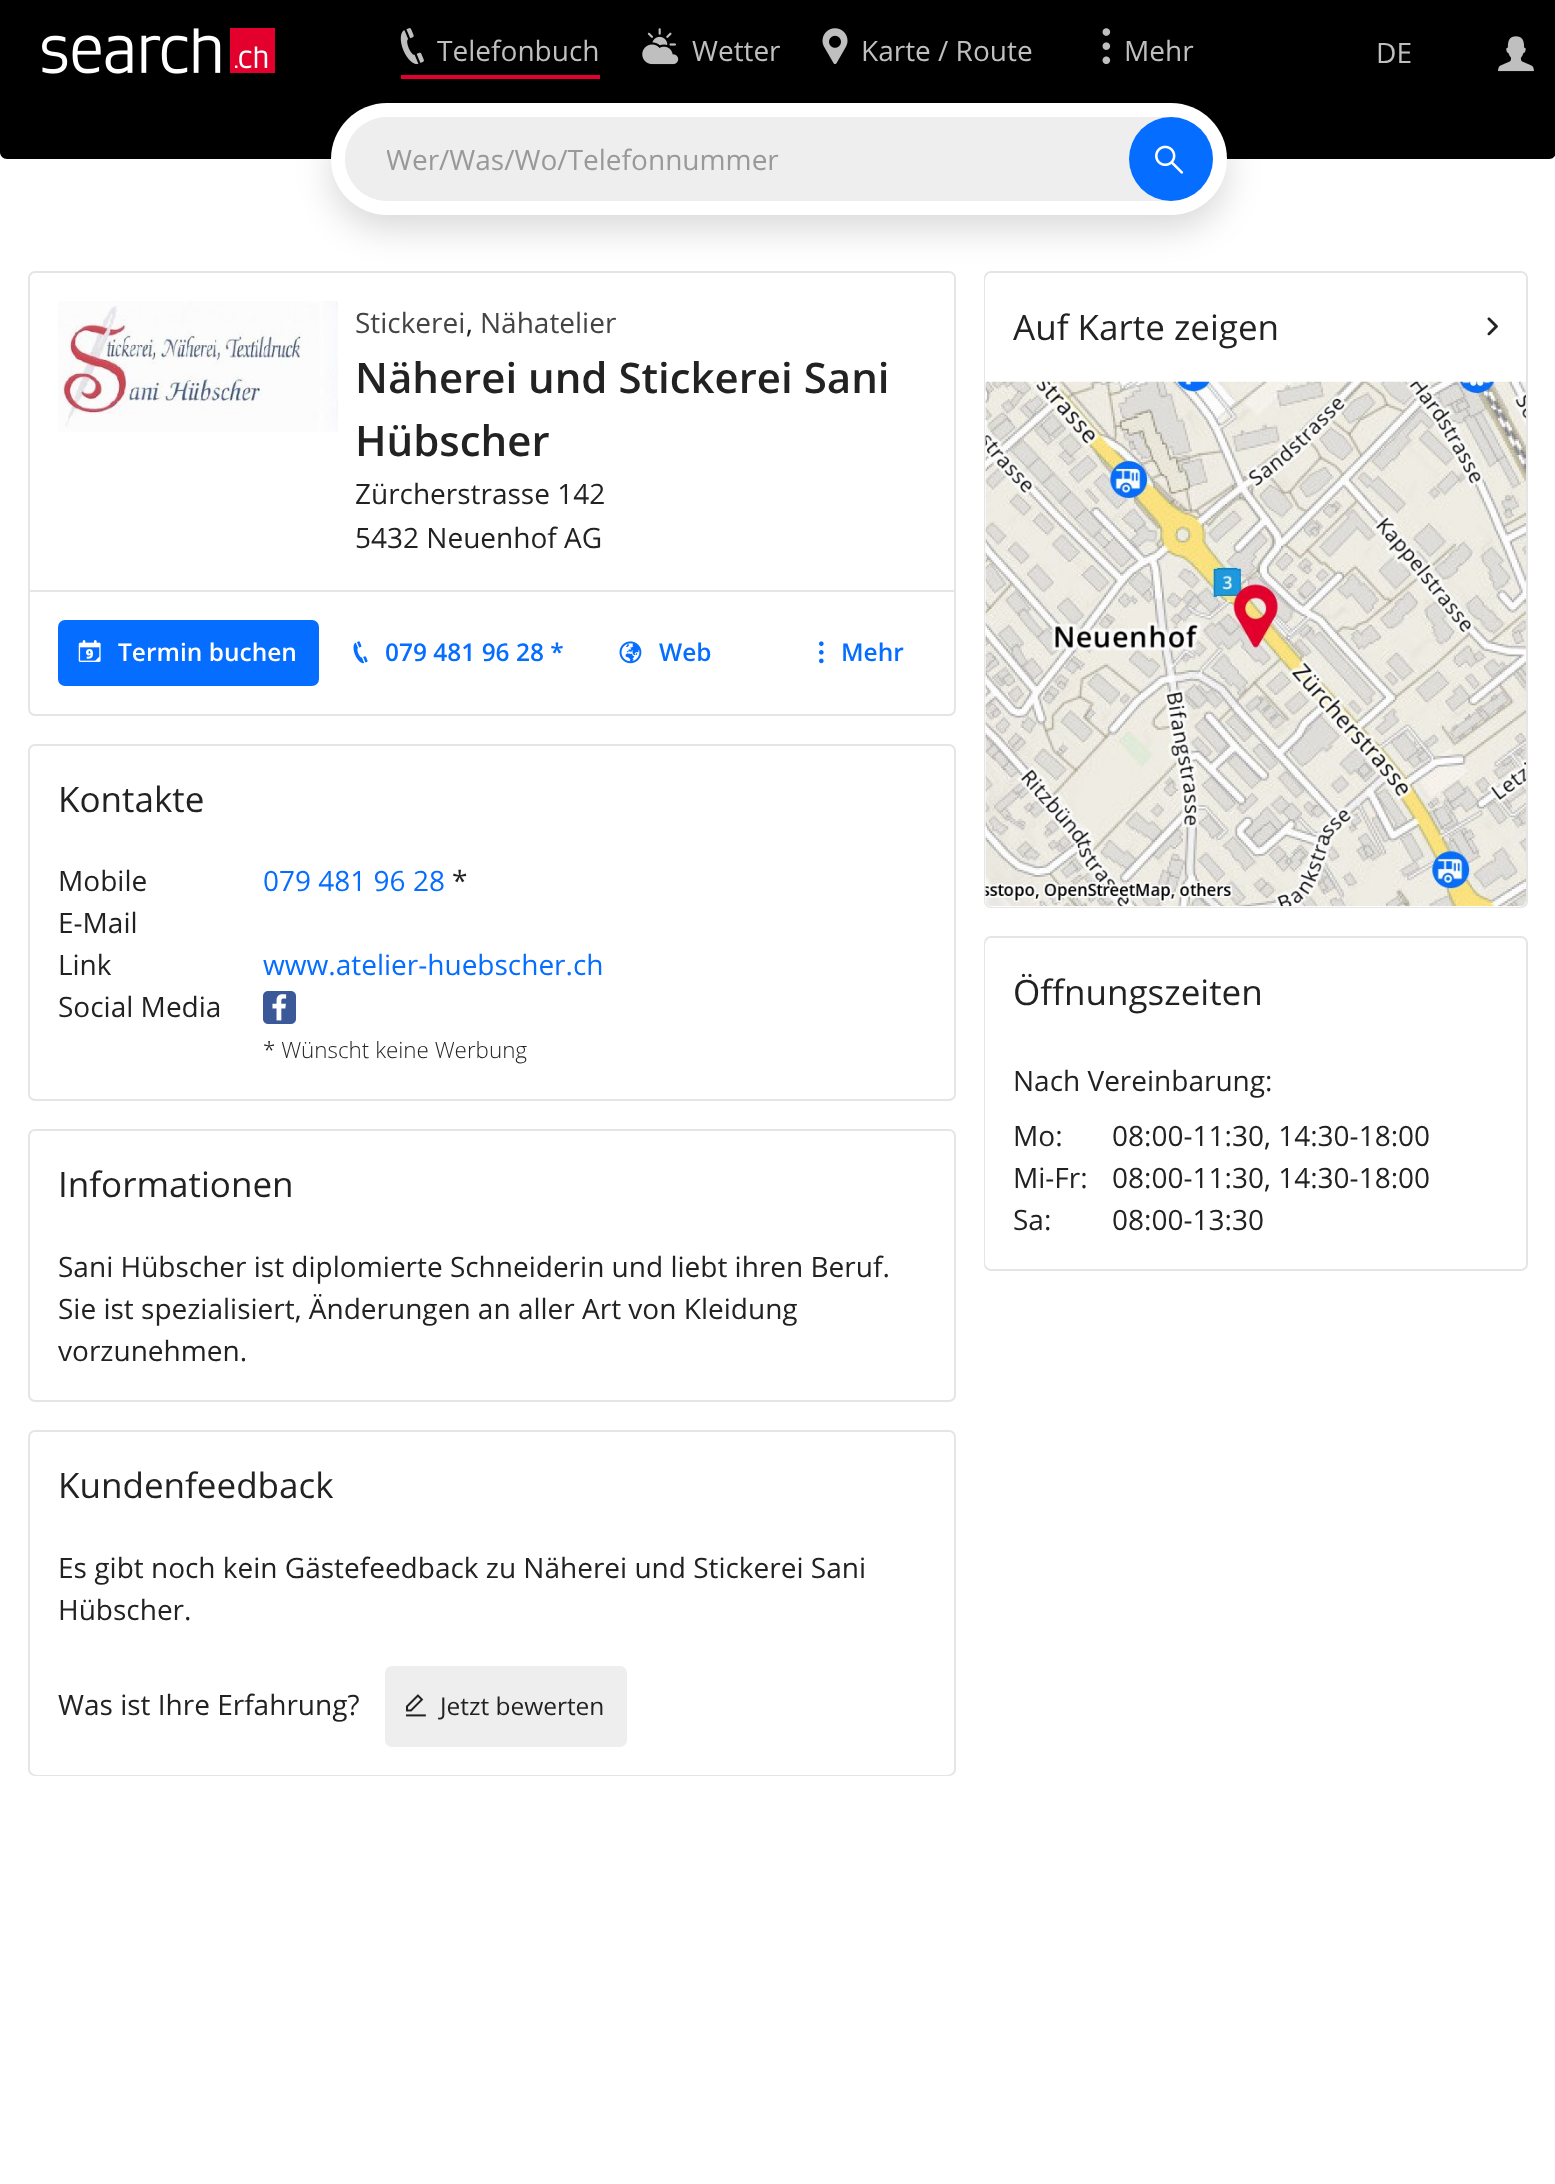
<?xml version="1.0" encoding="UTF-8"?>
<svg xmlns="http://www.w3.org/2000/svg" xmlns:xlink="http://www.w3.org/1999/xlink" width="1555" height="2184">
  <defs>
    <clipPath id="clip1"><rect x="387" y="140" width="742" height="39" /></clipPath>
  </defs>
  <rect width="100%" height="100%" fill="#ffffff" />
  <rect width="1555" height="103" fill="#000000" />
  <image x="42" y="28" width="233" height="46" xlink:href="image1.png" />
  <rect x="401" y="75" width="199" height="4" fill="#e4002c" />
  <image x="400" y="28" width="24" height="37" xlink:href="image2.png" />
  <image x="642" y="28" width="37" height="37" xlink:href="image3.png" />
  <image x="822" y="28" width="26" height="36" xlink:href="image4.png" />
  <image x="1102" y="28" width="9" height="37" xlink:href="image5.png" />
  <image x="1498" y="36" width="36" height="36" xlink:href="image6.png" />
  <path d="M 0 103 h 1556 v 49 c 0 4 -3 7 -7 7 h -1542 c -4 0 -7 -3 -7 -7 z" fill="#000000" />
  <rect x="29" y="272" width="926" height="443" rx="6" fill="none" stroke="#e5e5e5" stroke-width="2" />
  <rect x="985" y="272" width="542" height="635" rx="6" fill="none" stroke="#e5e5e5" stroke-width="2" />
  <rect x="985" y="273" width="541" height="634" rx="7" fill="#ffffff" />
  <rect x="331" y="117" width="896" height="112" rx="56" fill="#000000" fill-opacity="0.15" filter="blur(17.5px)" />
  <rect x="331" y="103" width="896" height="112" rx="56" fill="#ffffff" />
  <rect x="345" y="117" width="868" height="84" rx="42" fill="#eeeeee" />
  <rect x="345" y="117" width="784" height="84" rx="42" fill="#eeeeee" />
  <circle cx="1171" cy="159" r="42" fill="#056dff" />
  <image x="1155" y="145" width="29" height="29" xlink:href="image7.png" />
  <image x="58" y="301" width="280" height="131" xlink:href="image8.png" />
  <rect x="30" y="590" width="924" height="2" fill="#e6e6e6" />
  <rect x="58" y="620" width="261" height="66" rx="7" fill="#056dff" />
  <image x="78" y="640" width="23" height="22" xlink:href="image9.png" />
  <image x="353" y="641" width="15" height="23" xlink:href="image10.png" />
  <image x="619" y="641" width="23" height="23" xlink:href="image11.png" />
  <image x="819" y="641" width="5" height="23" xlink:href="image12.png" />
  <rect x="29" y="745" width="926" height="355" rx="6" fill="none" stroke="#e5e5e5" stroke-width="2" />
  <image x="263" y="991" width="33" height="33" xlink:href="image13.png" />
  <rect x="29" y="1130" width="926" height="271" rx="6" fill="none" stroke="#e5e5e5" stroke-width="2" />
  <rect x="29" y="1431" width="926" height="344" rx="6" fill="none" stroke="#e5e5e5" stroke-width="2" />
  <rect x="30" y="1432" width="924" height="343" rx="7" fill="#ffffff" />
  <rect x="385" y="1666" width="242" height="81" rx="7" fill="#eeeeee" />
  <image x="406" y="1694" width="20" height="23" xlink:href="image14.png" />
  <image x="1487" y="317" width="11" height="19" xlink:href="image15.png" />
  <image x="985" y="381" width="541" height="526" xlink:href="image16.png" />
  <rect x="985" y="937" width="542" height="333" rx="6" fill="none" stroke="#e5e5e5" stroke-width="2" />
  <rect x="985" y="938" width="541" height="331" rx="7" fill="#ffffff" />
  <text x="437" y="61" style="font-family: Open Sans; font-size: 28px; fill: #bfbfbf">Telefonbuch</text>
  <text x="692" y="61" style="font-family: Open Sans; font-size: 28px; fill: #bfbfbf">Wetter</text>
  <text x="861" y="61" style="font-family: Open Sans; font-size: 28px; fill: #bfbfbf">Karte / Route</text>
  <text x="1124" y="61" style="font-family: Open Sans; font-size: 28px; fill: #bfbfbf">Mehr</text>
  <text x="1376" y="63" style="font-family: Open Sans; font-size: 28px; fill: #bfbfbf">DE</text>
  <g clip-path="url(#clip1)">
    <text x="386" y="170" style="font-family: Open Sans; font-size: 28px; fill: #999999">Wer/Was/Wo/Telefonnummer</text>
  </g>
  <text x="355" y="333" style="font-family: Open Sans; font-size: 28px; fill: #444444">Stickerei</text>
  <text x="466" y="333" style="font-family: Open Sans; font-size: 28px; fill: #222222">,</text>
  <text x="480" y="333" style="font-family: Open Sans; font-size: 28px; fill: #444444">Nähatelier</text>
  <text x="355" y="393" style="font-family: Open Sans; font-size: 42px; font-weight: 600; fill: #222222">Näherei und Stickerei Sani</text>
  <text x="355" y="456" style="font-family: Open Sans; font-size: 42px; font-weight: 600; fill: #222222">Hübscher</text>
  <text x="355" y="504" style="font-family: Open Sans; font-size: 28px; fill: #222222">Zürcherstrasse 142</text>
  <text x="355" y="548" style="font-family: Open Sans; font-size: 28px; fill: #222222">5432 Neuenhof AG</text>
  <text x="118" y="661" style="font-family: Open Sans; font-size: 24.5px; font-weight: 600; fill: #ffffff">Termin buchen</text>
  <text x="385" y="661" style="font-family: Open Sans; font-size: 24.5px; font-weight: 600; fill: #056dff">079 481 96 28 *</text>
  <text x="659" y="661" style="font-family: Open Sans; font-size: 24.5px; font-weight: 600; fill: #056dff">Web</text>
  <text x="841" y="661" style="font-family: Open Sans; font-size: 24.5px; font-weight: 600; fill: #056dff">Mehr</text>
  <text x="58" y="812" style="font-family: Open Sans; font-size: 35px; fill: #222222">Kontakte</text>
  <text x="58" y="891" style="font-family: Open Sans; font-size: 28px; fill: #222222">Mobile</text>
  <text x="263" y="891" style="font-family: Open Sans; font-size: 28px; fill: #056dff">079 481 96 28</text>
  <text x="452" y="891" style="font-family: Open Sans; font-size: 28px; fill: #222222">*</text>
  <text x="58" y="933" style="font-family: Open Sans; font-size: 28px; fill: #222222">E-Mail</text>
  <text x="58" y="975" style="font-family: Open Sans; font-size: 28px; fill: #222222">Link</text>
  <text x="263" y="975" style="font-family: Open Sans; font-size: 28px; fill: #056dff">www.atelier-huebscher.ch</text>
  <text x="58" y="1017" style="font-family: Open Sans; font-size: 28px; fill: #222222">Social Media</text>
  <text x="263" y="1058" style="font-family: Open Sans; font-size: 22.4px; font-weight: 300; fill: #222222">* Wünscht keine Werbung</text>
  <text x="58" y="1197" style="font-family: Open Sans; font-size: 35px; fill: #222222">Informationen</text>
  <text x="58" y="1277" style="font-family: Open Sans; font-size: 28px; fill: #222222">Sani Hübscher ist diplomierte Schneiderin und liebt ihren Beruf.</text>
  <text x="58" y="1319" style="font-family: Open Sans; font-size: 28px; fill: #222222">Sie ist spezialisiert, Änderungen an aller Art von Kleidung</text>
  <text x="58" y="1361" style="font-family: Open Sans; font-size: 28px; fill: #222222">vorzunehmen.</text>
  <text x="58" y="1498" style="font-family: Open Sans; font-size: 35px; fill: #222222">Kundenfeedback</text>
  <text x="58" y="1578" style="font-family: Open Sans; font-size: 28px; fill: #222222">Es gibt noch kein Gästefeedback zu Näherei und Stickerei Sani</text>
  <text x="58" y="1620" style="font-family: Open Sans; font-size: 28px; fill: #222222">Hübscher.</text>
  <text x="58" y="1715" style="font-family: Open Sans; font-size: 28px; fill: #222222">Was ist Ihre Erfahrung?</text>
  <text x="440" y="1715" style="font-family: Open Sans; font-size: 24.5px; fill: #222222">Jetzt bewerten</text>
  <text x="1013" y="340" style="font-family: Open Sans; font-size: 35px; fill: #222222">Auf Karte zeigen</text>
  <text x="1013" y="1005" style="font-family: Open Sans; font-size: 35px; fill: #222222">Öffnungszeiten</text>
  <text x="1013" y="1091" style="font-family: Open Sans; font-size: 28px; fill: #222222">Nach Vereinbarung:</text>
  <text x="1013" y="1146" style="font-family: Open Sans; font-size: 28px; fill: #222222">Mo:</text>
  <text x="1112" y="1146" style="font-family: Open Sans; font-size: 28px; fill: #222222">08:00-11:30, 14:30-18:00</text>
  <text x="1013" y="1188" style="font-family: Open Sans; font-size: 28px; fill: #222222">Mi-Fr:</text>
  <text x="1112" y="1188" style="font-family: Open Sans; font-size: 28px; fill: #222222">08:00-11:30, 14:30-18:00</text>
  <text x="1013" y="1230" style="font-family: Open Sans; font-size: 28px; fill: #222222">Sa:</text>
  <text x="1112" y="1230" style="font-family: Open Sans; font-size: 28px; fill: #222222">08:00-13:30</text>
</svg>
